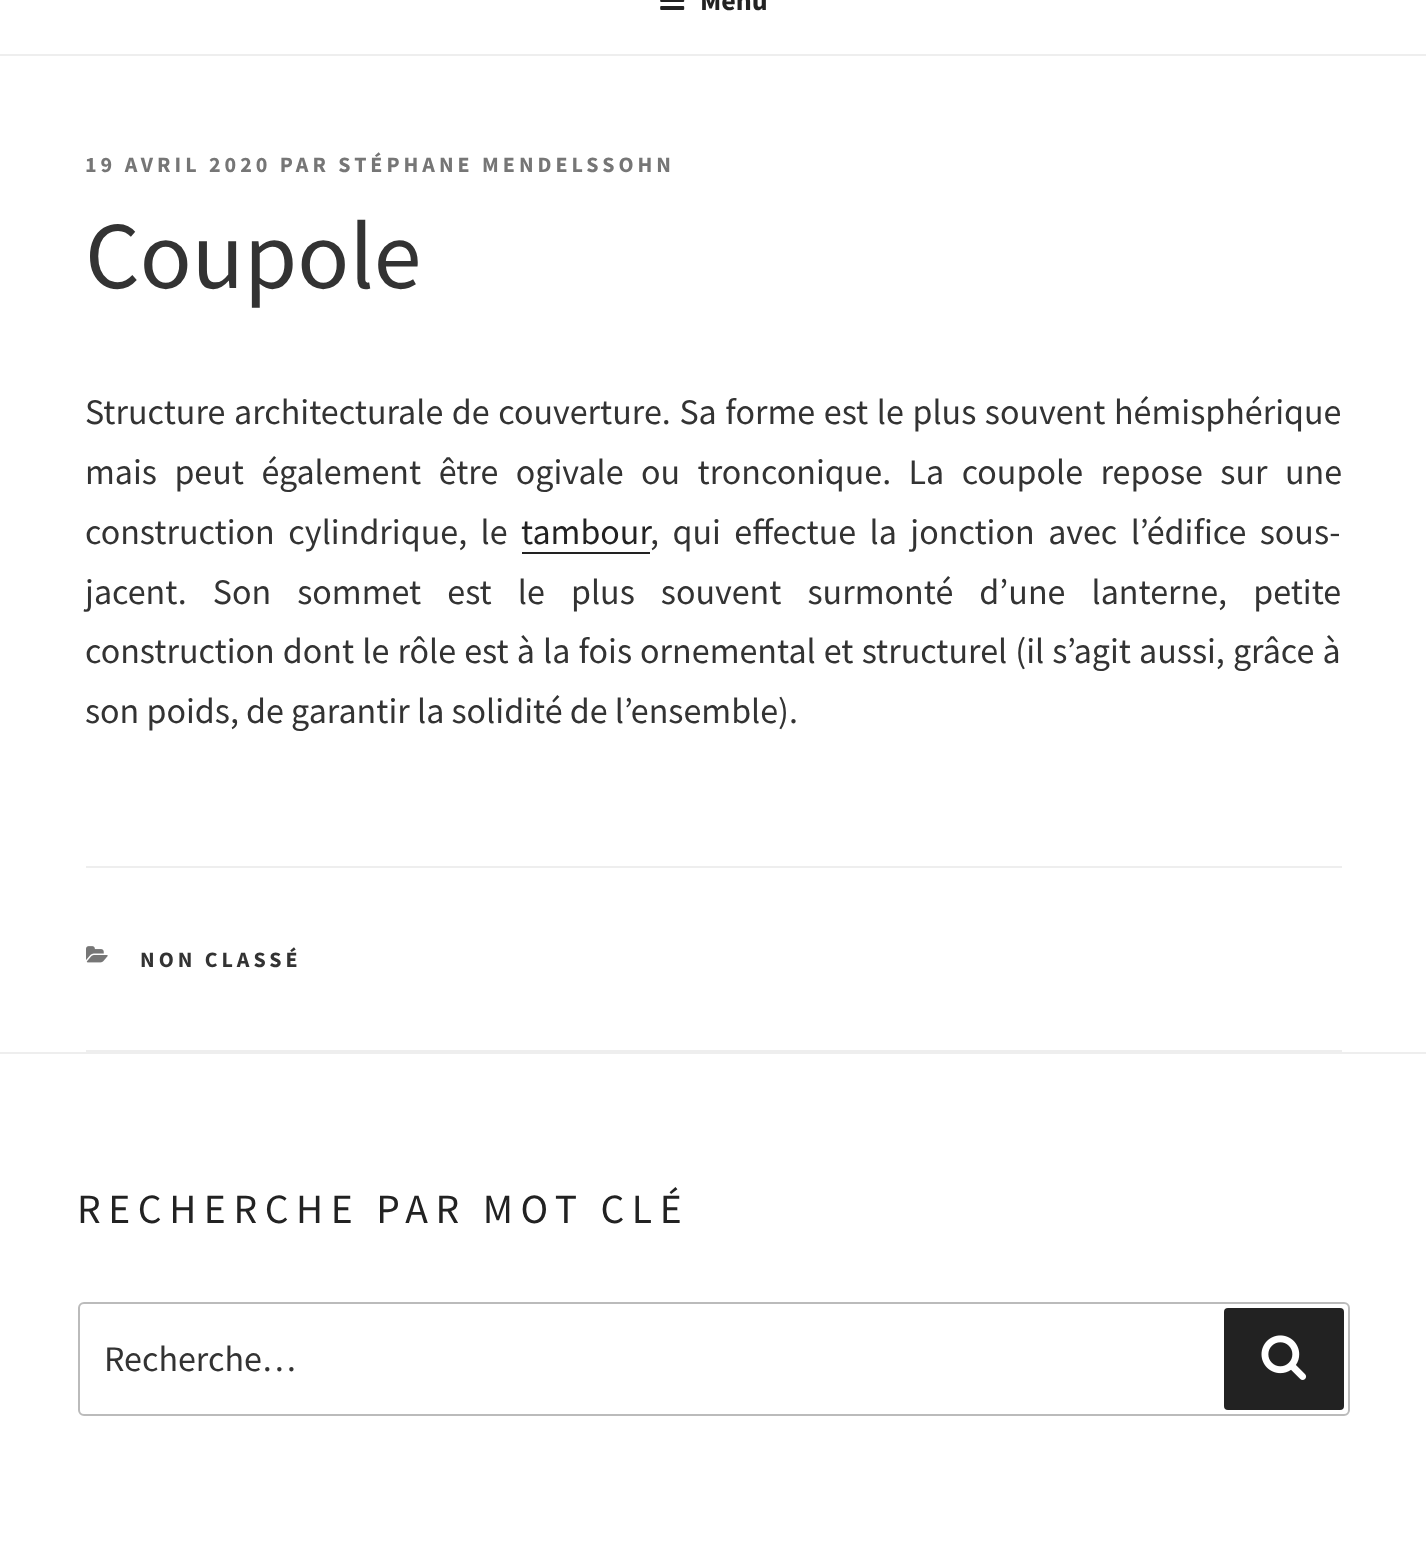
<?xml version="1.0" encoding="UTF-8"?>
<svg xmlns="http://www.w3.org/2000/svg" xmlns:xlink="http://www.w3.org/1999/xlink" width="1426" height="1556">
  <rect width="100%" height="100%" fill="#ffffff" />
  <rect y="54" width="1426" height="2" fill="#eeeeee" />
  <image x="660" y="0" width="25" height="10" xlink:href="image1.png" />
  <rect x="522" y="552" width="128" height="2" fill="#222222" />
  <rect x="86" y="866" width="1256" height="2" fill="#eeeeee" />
  <rect x="86" y="1050" width="1256" height="2" fill="#eeeeee" />
  <image x="86" y="946" width="22" height="17" xlink:href="image2.png" />
  <rect y="1052" width="1426" height="2" fill="#eeeeee" />
  <rect x="79" y="1303" width="1270" height="112" rx="5" fill="none" stroke="#bbbbbb" stroke-width="2" />
  <rect x="1224" y="1308" width="120" height="102" rx="4" fill="#222222" />
  <image x="1261" y="1335" width="46" height="45" xlink:href="image3.png" />
  <text x="700" y="10" style="font-family: Source Sans Pro; font-size: 28px; font-weight: bold; fill: #222222">Menu</text>
  <text x="85" y="172" style="font-family: Source Sans Pro; font-size: 22px; font-weight: bold; letter-spacing: 4px; fill: #767676">19 AVRIL 2020 PAR STÉPHANE MENDELSSOHN</text>
  <text x="85" y="288" style="font-family: Source Sans Pro; font-size: 96px; fill: #333333">Coupole</text>
  <text x="85" y="424" word-spacing="1.4" style="font-family: Source Sans Pro; font-size: 36px; fill: #333333">Structure architecturale de couverture. Sa forme est le plus souvent hémisphérique</text>
  <text x="85" y="484" word-spacing="10.25" style="font-family: Source Sans Pro; font-size: 36px; fill: #333333">mais peut également être ogivale ou tronconique. La coupole repose sur une</text>
  <text x="85" y="544" word-spacing="6.25" style="font-family: Source Sans Pro; font-size: 36px; fill: #333333">construction cylindrique, le</text>
  <text x="521" y="544" style="font-family: Source Sans Pro; font-size: 36px; fill: #222222">tambour</text>
  <text x="650" y="544" word-spacing="6.25" style="font-family: Source Sans Pro; font-size: 36px; fill: #333333">, qui effectue la jonction avec l’édifice sous-</text>
  <text x="85" y="604" word-spacing="18.9" style="font-family: Source Sans Pro; font-size: 36px; fill: #333333">jacent. Son sommet est le plus souvent surmonté d’une lanterne, petite</text>
  <text x="85" y="663" word-spacing="0.9" style="font-family: Source Sans Pro; font-size: 36px; fill: #333333">construction dont le rôle est à la fois ornemental et structurel (il s’agit aussi, grâce à</text>
  <text x="85" y="723" style="font-family: Source Sans Pro; font-size: 36px; fill: #333333">son poids, de garantir la solidité de l’ensemble).</text>
  <text x="140" y="967" style="font-family: Source Sans Pro; font-size: 22px; font-weight: bold; letter-spacing: 4px; fill: #333333">NON CLASSÉ</text>
  <text x="77" y="1223" style="font-family: Source Sans Pro; font-size: 41.6px; letter-spacing: 7.6px; fill: #222222">RECHERCHE PAR MOT CLÉ</text>
  <text x="104" y="1371" style="font-family: Source Sans Pro; font-size: 36px; fill: #333333">Recherche…</text>
</svg>
